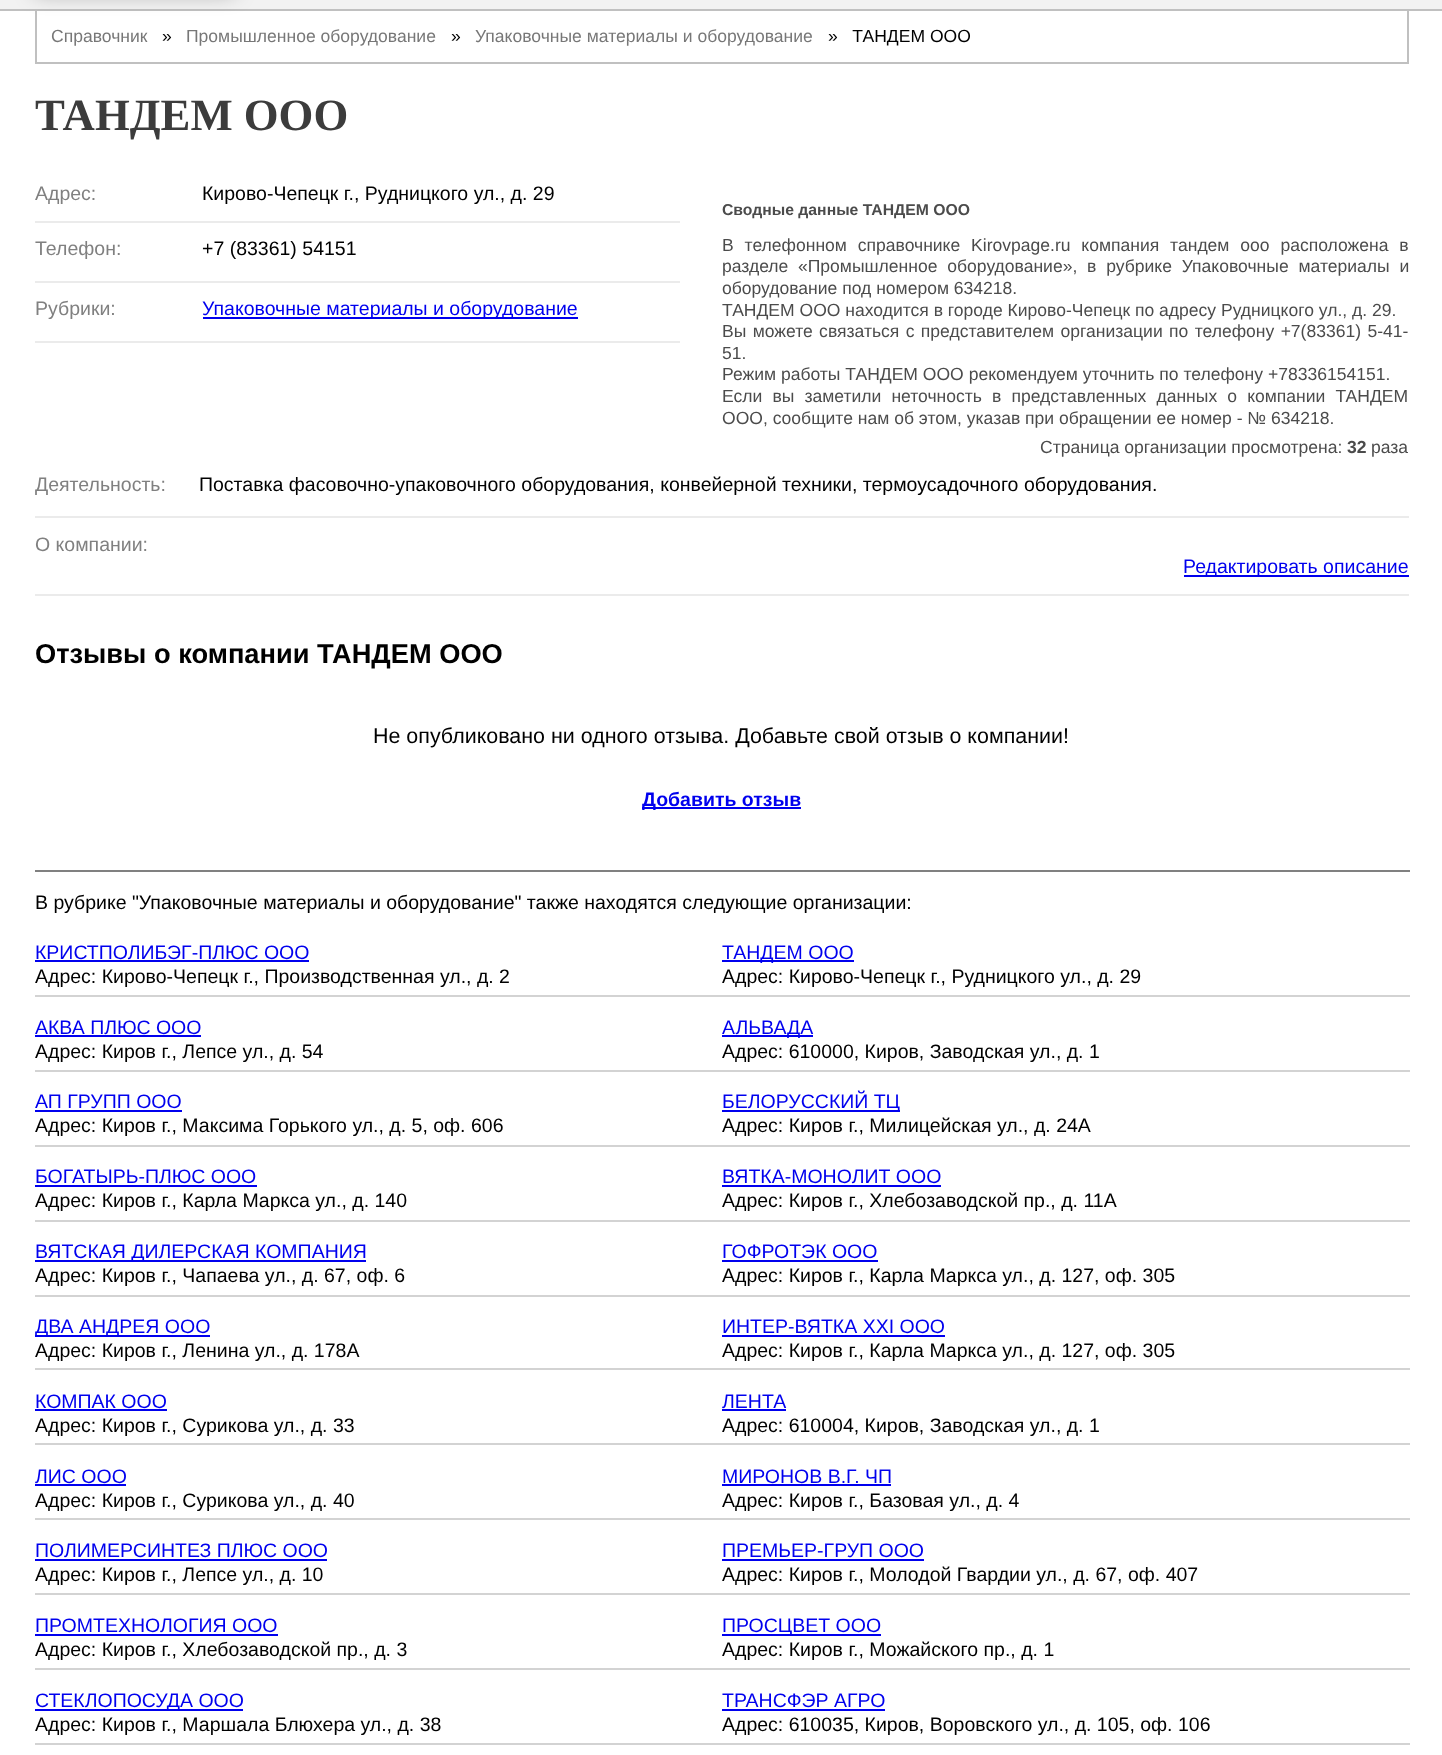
<?xml version="1.0" encoding="UTF-8"?>
<svg xmlns="http://www.w3.org/2000/svg" xmlns:xlink="http://www.w3.org/1999/xlink" width="1442" height="1755">
  <rect width="100%" height="100%" fill="#ffffff" />
  <rect width="1442" height="9" fill="#f2f2f2" />
  <rect y="9" width="1442" height="2" fill="#c0c0c0" />
  <rect x="1407" y="11" width="2" height="52" fill="#c0c0c0" />
  <rect x="35" y="62" width="1374" height="2" fill="#c0c0c0" />
  <rect x="35" y="11" width="2" height="52" fill="#c0c0c0" />
  <rect x="35" y="-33" width="199" height="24" fill="#000000" fill-opacity="0.4" filter="blur(11px)" />
  <rect x="35" y="221" width="645" height="2" fill="#ebebeb" />
  <rect x="35" y="281" width="645" height="2" fill="#ebebeb" />
  <rect x="203" y="317" width="375" height="2" fill="#0000ee" />
  <rect x="35" y="341" width="645" height="2" fill="#ebebeb" />
  <rect x="35" y="516" width="1374" height="2" fill="#ebebeb" />
  <rect x="1184" y="575" width="225" height="2" fill="#0000ee" />
  <rect x="35" y="594" width="1374" height="2" fill="#ebebeb" />
  <rect x="35" y="870" width="1375" height="2" fill="#808080" />
  <rect x="642" y="807" width="159" height="2" fill="#0000ee" />
  <rect x="35" y="960" width="274" height="2" fill="#0000ee" />
  <rect x="35" y="995" width="1375" height="2" fill="#d3d3d3" />
  <rect x="722" y="960" width="132" height="2" fill="#0000ee" />
  <rect x="35" y="1035" width="166" height="2" fill="#0000ee" />
  <rect x="35" y="1070" width="1375" height="2" fill="#d3d3d3" />
  <rect x="722" y="1035" width="91" height="2" fill="#0000ee" />
  <rect x="35" y="1110" width="147" height="2" fill="#0000ee" />
  <rect x="35" y="1145" width="1375" height="2" fill="#d3d3d3" />
  <rect x="722" y="1110" width="178" height="2" fill="#0000ee" />
  <rect x="35" y="1185" width="222" height="2" fill="#0000ee" />
  <rect x="35" y="1220" width="1375" height="2" fill="#d3d3d3" />
  <rect x="722" y="1185" width="219" height="2" fill="#0000ee" />
  <rect x="35" y="1260" width="331" height="2" fill="#0000ee" />
  <rect x="35" y="1295" width="1375" height="2" fill="#d3d3d3" />
  <rect x="722" y="1260" width="156" height="2" fill="#0000ee" />
  <rect x="35" y="1335" width="175" height="2" fill="#0000ee" />
  <rect x="35" y="1368" width="1375" height="2" fill="#d3d3d3" />
  <rect x="722" y="1335" width="223" height="2" fill="#0000ee" />
  <rect x="35" y="1409" width="132" height="2" fill="#0000ee" />
  <rect x="35" y="1443" width="1375" height="2" fill="#d3d3d3" />
  <rect x="722" y="1409" width="64" height="2" fill="#0000ee" />
  <rect x="35" y="1484" width="91" height="2" fill="#0000ee" />
  <rect x="35" y="1518" width="1375" height="2" fill="#d3d3d3" />
  <rect x="722" y="1484" width="169" height="2" fill="#0000ee" />
  <rect x="35" y="1559" width="292" height="2" fill="#0000ee" />
  <rect x="35" y="1593" width="1375" height="2" fill="#d3d3d3" />
  <rect x="722" y="1559" width="202" height="2" fill="#0000ee" />
  <rect x="35" y="1634" width="243" height="2" fill="#0000ee" />
  <rect x="35" y="1668" width="1375" height="2" fill="#d3d3d3" />
  <rect x="722" y="1634" width="159" height="2" fill="#0000ee" />
  <rect x="35" y="1709" width="208" height="2" fill="#0000ee" />
  <rect x="35" y="1743" width="1375" height="2" fill="#d3d3d3" />
  <rect x="722" y="1709" width="163" height="2" fill="#0000ee" />
  <text x="51" y="42" style="font-family: Liberation Sans; font-size: 17.55px; fill: #777777">Справочник</text>
  <text x="162" y="42" style="font-family: Liberation Sans; font-size: 17.55px; fill: #000000">»</text>
  <text x="186" y="42" style="font-family: Liberation Sans; font-size: 17.55px; fill: #777777">Промышленное оборудование</text>
  <text x="451" y="42" style="font-family: Liberation Sans; font-size: 17.55px; fill: #000000">»</text>
  <text x="475" y="42" style="font-family: Liberation Sans; font-size: 17.55px; fill: #777777">Упаковочные материалы и оборудование</text>
  <text x="828" y="42" style="font-family: Liberation Sans; font-size: 17.55px; fill: #000000" xml:space="preserve">»   ТАНДЕМ ООО</text>
  <text x="35" y="130" style="font-family: Liberation Serif; font-size: 44.75px; font-weight: bold; fill: #3c3c3c">ТАНДЕМ ООО</text>
  <text x="35" y="200" style="font-family: Liberation Sans; font-size: 19.5px; fill: #808080">Адрес:</text>
  <text x="202" y="200" style="font-family: Liberation Sans; font-size: 19.5px; fill: #000000">Кирово-Чепецк г., Рудницкого ул., д. 29</text>
  <text x="35" y="255" style="font-family: Liberation Sans; font-size: 19.5px; fill: #808080">Телефон:</text>
  <text x="202" y="255" style="font-family: Liberation Sans; font-size: 19.5px; fill: #000000">+7 (83361) 54151</text>
  <text x="35" y="315" style="font-family: Liberation Sans; font-size: 19.5px; fill: #808080">Рубрики:</text>
  <text x="202" y="315" style="font-family: Liberation Sans; font-size: 19.5px; fill: #0000ee">Упаковочные материалы и оборудование</text>
  <text x="722" y="215" style="font-family: Liberation Sans; font-size: 15.75px; font-weight: bold; fill: #4b4b4b">Сводные данные ТАНДЕМ ООО</text>
  <text x="722" y="251" word-spacing="6" style="font-family: Liberation Sans; font-size: 17.55px; fill: #4b4b4b">В телефонном справочнике Kirovpage.ru компания тандем ооо расположена в</text>
  <text x="722" y="272" style="font-family: Liberation Sans; font-size: 17.55px; fill: #4b4b4b">разделе</text>
  <text x="798" y="272" word-spacing="5" style="font-family: Liberation Sans; font-size: 17.55px; fill: #4b4b4b">«Промышленное оборудование»,</text>
  <text x="1087" y="272" word-spacing="5" style="font-family: Liberation Sans; font-size: 17.55px; fill: #4b4b4b">в рубрике Упаковочные материалы и</text>
  <text x="722" y="294" style="font-family: Liberation Sans; font-size: 17.55px; fill: #4b4b4b">оборудование под номером 634218.</text>
  <text x="722" y="316" style="font-family: Liberation Sans; font-size: 17.55px; fill: #4b4b4b">ТАНДЕМ ООО находится в городе Кирово-Чепецк</text>
  <text x="1135" y="316" style="font-family: Liberation Sans; font-size: 17.55px; fill: #4b4b4b">по адресу Рудницкого ул., д. 29.</text>
  <text x="722" y="337" word-spacing="1.5" style="font-family: Liberation Sans; font-size: 17.55px; fill: #4b4b4b">Вы можете связаться с представителем организации по телефону +7(83361) 5-41-</text>
  <text x="722" y="359" style="font-family: Liberation Sans; font-size: 17.55px; fill: #4b4b4b">51.</text>
  <text x="722" y="380" style="font-family: Liberation Sans; font-size: 17.55px; fill: #4b4b4b">Режим работы ТАНДЕМ ООО рекомендуем уточнить по телефону +78336154151.</text>
  <text x="722" y="402" word-spacing="5.25" style="font-family: Liberation Sans; font-size: 17.55px; fill: #4b4b4b">Если вы заметили неточность в представленных данных о компании ТАНДЕМ</text>
  <text x="722" y="424" style="font-family: Liberation Sans; font-size: 17.55px; fill: #4b4b4b">ООО, сообщите нам об этом, указав при обращении ее номер - № 634218.</text>
  <text x="1040" y="453" style="font-family: Liberation Sans; font-size: 17.55px; fill: #4b4b4b">Cтраница организации просмотрена:</text>
  <text x="1347" y="453" style="font-family: Liberation Sans; font-size: 17.55px; font-weight: bold; fill: #4b4b4b">32</text>
  <text x="1371" y="453" style="font-family: Liberation Sans; font-size: 17.55px; fill: #4b4b4b">раза</text>
  <text x="35" y="491" style="font-family: Liberation Sans; font-size: 19.5px; fill: #808080">Деятельность:</text>
  <text x="199" y="491" style="font-family: Liberation Sans; font-size: 19.5px; fill: #000000">Поставка фасовочно-упаковочного оборудования, конвейерной техники, термоусадочного оборудования.</text>
  <text x="35" y="551" style="font-family: Liberation Sans; font-size: 19.5px; fill: #808080">О компании:</text>
  <text x="1183" y="573" style="font-family: Liberation Sans; font-size: 19.5px; fill: #0000ee">Редактировать описание</text>
  <text x="35" y="663" style="font-family: Liberation Sans; font-size: 27.25px; font-weight: bold; fill: #000000">Отзывы о компании ТАНДЕМ ООО</text>
  <text x="373" y="743" style="font-family: Liberation Sans; font-size: 21.45px; fill: #000000">Не опубликовано ни одного отзыва. Добавьте свой отзыв о компании!</text>
  <text x="642" y="806" style="font-family: Liberation Sans; font-size: 19.5px; font-weight: bold; fill: #0000ee">Добавить отзыв</text>
  <text x="35" y="909" style="font-family: Liberation Sans; font-size: 19.5px; fill: #000000">В рубрике "Упаковочные материалы и оборудование" также находятся следующие организации:</text>
  <text x="35" y="959" style="font-family: Liberation Sans; font-size: 19.5px; fill: #0000ee">КРИСТПОЛИБЭГ-ПЛЮС ООО</text>
  <text x="35" y="983" style="font-family: Liberation Sans; font-size: 19.5px; fill: #000000">Адрес: Кирово-Чепецк г., Производственная ул., д. 2</text>
  <text x="722" y="959" style="font-family: Liberation Sans; font-size: 19.5px; fill: #0000ee">ТАНДЕМ ООО</text>
  <text x="722" y="983" style="font-family: Liberation Sans; font-size: 19.5px; fill: #000000">Адрес: Кирово-Чепецк г., Рудницкого ул., д. 29</text>
  <text x="35" y="1034" style="font-family: Liberation Sans; font-size: 19.5px; fill: #0000ee">АКВА ПЛЮС ООО</text>
  <text x="35" y="1058" style="font-family: Liberation Sans; font-size: 19.5px; fill: #000000">Адрес: Киров г., Лепсе ул., д. 54</text>
  <text x="722" y="1034" style="font-family: Liberation Sans; font-size: 19.5px; fill: #0000ee">АЛЬВАДА</text>
  <text x="722" y="1058" style="font-family: Liberation Sans; font-size: 19.5px; fill: #000000">Адрес: 610000, Киров, Заводская ул., д. 1</text>
  <text x="35" y="1108" style="font-family: Liberation Sans; font-size: 19.5px; fill: #0000ee">АП ГРУПП ООО</text>
  <text x="35" y="1132" style="font-family: Liberation Sans; font-size: 19.5px; fill: #000000">Адрес: Киров г., Максима Горького ул., д. 5, оф. 606</text>
  <text x="722" y="1108" style="font-family: Liberation Sans; font-size: 19.5px; fill: #0000ee">БЕЛОРУССКИЙ ТЦ</text>
  <text x="722" y="1132" style="font-family: Liberation Sans; font-size: 19.5px; fill: #000000">Адрес: Киров г., Милицейская ул., д. 24А</text>
  <text x="35" y="1183" style="font-family: Liberation Sans; font-size: 19.5px; fill: #0000ee">БОГАТЫРЬ-ПЛЮС ООО</text>
  <text x="35" y="1207" style="font-family: Liberation Sans; font-size: 19.5px; fill: #000000">Адрес: Киров г., Карла Маркса ул., д. 140</text>
  <text x="722" y="1183" style="font-family: Liberation Sans; font-size: 19.5px; fill: #0000ee">ВЯТКА-МОНОЛИТ ООО</text>
  <text x="722" y="1207" style="font-family: Liberation Sans; font-size: 19.5px; fill: #000000">Адрес: Киров г., Хлебозаводской пр., д. 11А</text>
  <text x="35" y="1258" style="font-family: Liberation Sans; font-size: 19.5px; fill: #0000ee">ВЯТСКАЯ ДИЛЕРСКАЯ КОМПАНИЯ</text>
  <text x="35" y="1282" style="font-family: Liberation Sans; font-size: 19.5px; fill: #000000">Адрес: Киров г., Чапаева ул., д. 67, оф. 6</text>
  <text x="722" y="1258" style="font-family: Liberation Sans; font-size: 19.5px; fill: #0000ee">ГОФРОТЭК ООО</text>
  <text x="722" y="1282" style="font-family: Liberation Sans; font-size: 19.5px; fill: #000000">Адрес: Киров г., Карла Маркса ул., д. 127, оф. 305</text>
  <text x="35" y="1333" style="font-family: Liberation Sans; font-size: 19.5px; fill: #0000ee">ДВА АНДРЕЯ ООО</text>
  <text x="35" y="1357" style="font-family: Liberation Sans; font-size: 19.5px; fill: #000000">Адрес: Киров г., Ленина ул., д. 178А</text>
  <text x="722" y="1333" style="font-family: Liberation Sans; font-size: 19.5px; fill: #0000ee">ИНТЕР-ВЯТКА XXI ООО</text>
  <text x="722" y="1357" style="font-family: Liberation Sans; font-size: 19.5px; fill: #000000">Адрес: Киров г., Карла Маркса ул., д. 127, оф. 305</text>
  <text x="35" y="1408" style="font-family: Liberation Sans; font-size: 19.5px; fill: #0000ee">КОМПАК ООО</text>
  <text x="35" y="1432" style="font-family: Liberation Sans; font-size: 19.5px; fill: #000000">Адрес: Киров г., Сурикова ул., д. 33</text>
  <text x="722" y="1408" style="font-family: Liberation Sans; font-size: 19.5px; fill: #0000ee">ЛЕНТА</text>
  <text x="722" y="1432" style="font-family: Liberation Sans; font-size: 19.5px; fill: #000000">Адрес: 610004, Киров, Заводская ул., д. 1</text>
  <text x="35" y="1483" style="font-family: Liberation Sans; font-size: 19.5px; fill: #0000ee">ЛИС ООО</text>
  <text x="35" y="1507" style="font-family: Liberation Sans; font-size: 19.5px; fill: #000000">Адрес: Киров г., Сурикова ул., д. 40</text>
  <text x="722" y="1483" style="font-family: Liberation Sans; font-size: 19.5px; fill: #0000ee">МИРОНОВ В.Г. ЧП</text>
  <text x="722" y="1507" style="font-family: Liberation Sans; font-size: 19.5px; fill: #000000">Адрес: Киров г., Базовая ул., д. 4</text>
  <text x="35" y="1557" style="font-family: Liberation Sans; font-size: 19.5px; fill: #0000ee">ПОЛИМЕРСИНТЕЗ ПЛЮС ООО</text>
  <text x="35" y="1581" style="font-family: Liberation Sans; font-size: 19.5px; fill: #000000">Адрес: Киров г., Лепсе ул., д. 10</text>
  <text x="722" y="1557" style="font-family: Liberation Sans; font-size: 19.5px; fill: #0000ee">ПРЕМЬЕР-ГРУП ООО</text>
  <text x="722" y="1581" style="font-family: Liberation Sans; font-size: 19.5px; fill: #000000">Адрес: Киров г., Молодой Гвардии ул., д. 67, оф. 407</text>
  <text x="35" y="1632" style="font-family: Liberation Sans; font-size: 19.5px; fill: #0000ee">ПРОМТЕХНОЛОГИЯ ООО</text>
  <text x="35" y="1656" style="font-family: Liberation Sans; font-size: 19.5px; fill: #000000">Адрес: Киров г., Хлебозаводской пр., д. 3</text>
  <text x="722" y="1632" style="font-family: Liberation Sans; font-size: 19.5px; fill: #0000ee">ПРОСЦВЕТ ООО</text>
  <text x="722" y="1656" style="font-family: Liberation Sans; font-size: 19.5px; fill: #000000">Адрес: Киров г., Можайского пр., д. 1</text>
  <text x="35" y="1707" style="font-family: Liberation Sans; font-size: 19.5px; fill: #0000ee">СТЕКЛОПОСУДА ООО</text>
  <text x="35" y="1731" style="font-family: Liberation Sans; font-size: 19.5px; fill: #000000">Адрес: Киров г., Маршала Блюхера ул., д. 38</text>
  <text x="722" y="1707" style="font-family: Liberation Sans; font-size: 19.5px; fill: #0000ee">ТРАНСФЭР АГРО</text>
  <text x="722" y="1731" style="font-family: Liberation Sans; font-size: 19.5px; fill: #000000">Адрес: 610035, Киров, Воровского ул., д. 105, оф. 106</text>
</svg>
